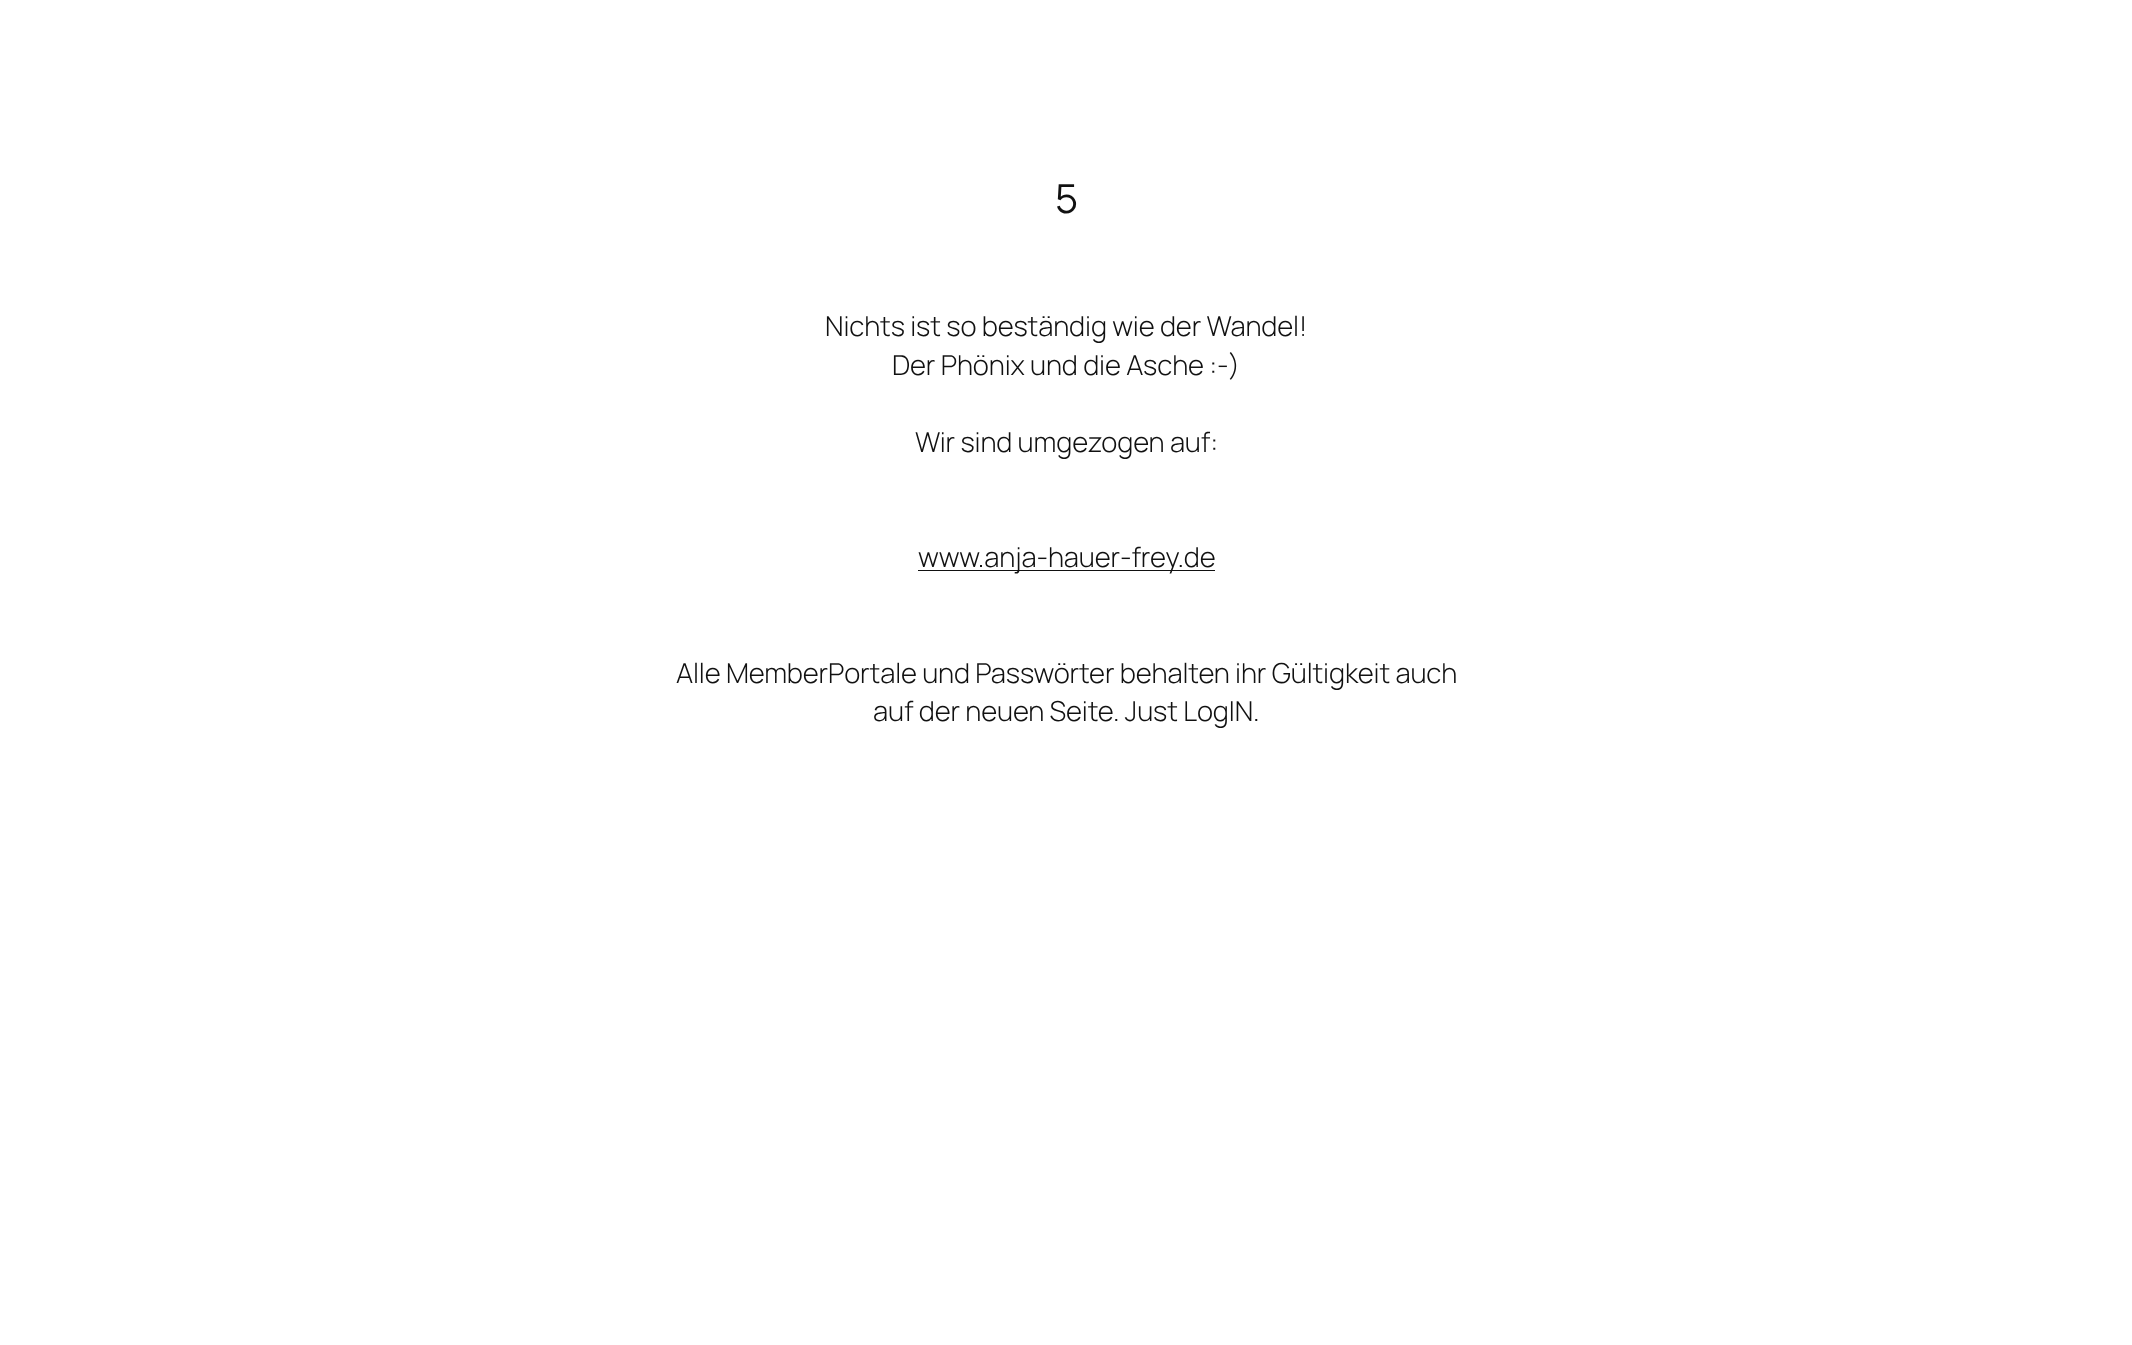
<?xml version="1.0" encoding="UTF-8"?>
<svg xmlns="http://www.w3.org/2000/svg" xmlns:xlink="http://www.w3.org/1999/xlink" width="2132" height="1345">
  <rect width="100%" height="100%" fill="#ffffff" />
  <rect x="918" y="570" width="297" height="1" fill="#111111" />
  <text x="1055" y="213" style="font-family: Manrope; font-size: 40px; letter-spacing: -0.12px; fill: #111111">5</text>
  <text x="825" y="336" style="font-family: Manrope; font-size: 27.5px; font-weight: 300; letter-spacing: -0.12px; fill: #111111">Nichts ist so beständig wie der Wandel!</text>
  <text x="892" y="375" style="font-family: Manrope; font-size: 27.5px; font-weight: 300; letter-spacing: -0.12px; fill: #111111">Der Phönix und die Asche :-)</text>
  <text x="915" y="452" style="font-family: Manrope; font-size: 27.5px; font-weight: 300; letter-spacing: -0.12px; fill: #111111">Wir sind umgezogen auf:</text>
  <text x="918" y="567" style="font-family: Manrope; font-size: 27.5px; font-weight: 300; letter-spacing: -0.12px; fill: #111111">www.anja-hauer-frey.de</text>
  <text x="676" y="683" style="font-family: Manrope; font-size: 27.5px; font-weight: 300; letter-spacing: -0.12px; fill: #111111">Alle MemberPortale und Passwörter behalten ihr Gültigkeit auch</text>
  <text x="873" y="721" style="font-family: Manrope; font-size: 27.5px; font-weight: 300; letter-spacing: -0.12px; fill: #111111">auf der neuen Seite. Just LogIN.</text>
</svg>
